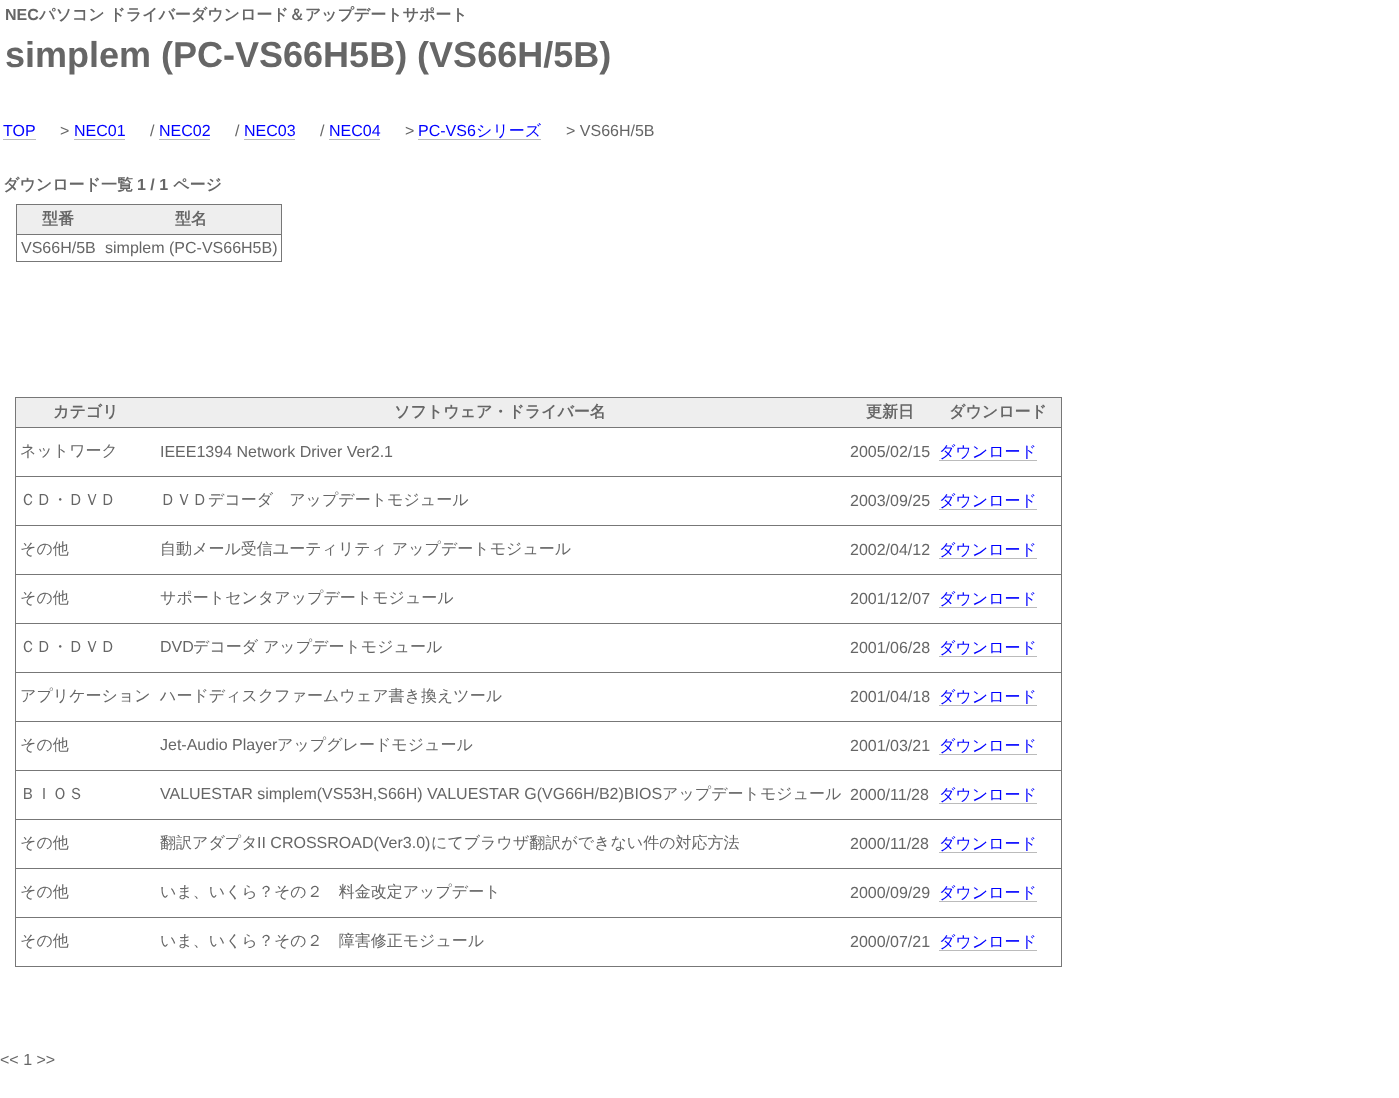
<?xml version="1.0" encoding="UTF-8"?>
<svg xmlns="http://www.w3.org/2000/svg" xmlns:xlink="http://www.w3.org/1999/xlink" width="1399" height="1098">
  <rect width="100%" height="100%" fill="#ffffff" />
  <rect x="3" y="139" width="33" height="1" fill="#bbbbbb" />
  <rect x="74" y="139" width="51" height="1" fill="#bbbbbb" />
  <rect x="159" y="139" width="51" height="1" fill="#bbbbbb" />
  <rect x="244" y="139" width="51" height="1" fill="#bbbbbb" />
  <rect x="329" y="139" width="51" height="1" fill="#bbbbbb" />
  <rect x="418" y="139" width="123" height="1" fill="#bbbbbb" />
  <rect x="16" y="204" width="266" height="58" fill="#777777" />
  <rect x="17" y="205" width="264" height="29" fill="#eeeeee" />
  <rect x="17" y="235" width="264" height="26" fill="#ffffff" />
  <rect x="15" y="397" width="1047" height="570" fill="#777777" />
  <rect x="16" y="398" width="1045" height="29" fill="#eeeeee" />
  <rect x="16" y="428" width="1045" height="48" fill="#ffffff" />
  <rect x="939" y="460" width="98" height="1" fill="#bbbbbb" />
  <rect x="16" y="477" width="1045" height="48" fill="#ffffff" />
  <rect x="939" y="509" width="98" height="1" fill="#bbbbbb" />
  <rect x="16" y="526" width="1045" height="48" fill="#ffffff" />
  <rect x="939" y="558" width="98" height="1" fill="#bbbbbb" />
  <rect x="16" y="575" width="1045" height="48" fill="#ffffff" />
  <rect x="939" y="607" width="98" height="1" fill="#bbbbbb" />
  <rect x="16" y="624" width="1045" height="48" fill="#ffffff" />
  <rect x="939" y="656" width="98" height="1" fill="#bbbbbb" />
  <rect x="16" y="673" width="1045" height="48" fill="#ffffff" />
  <rect x="939" y="705" width="98" height="1" fill="#bbbbbb" />
  <rect x="16" y="722" width="1045" height="48" fill="#ffffff" />
  <rect x="939" y="754" width="98" height="1" fill="#bbbbbb" />
  <rect x="16" y="771" width="1045" height="48" fill="#ffffff" />
  <rect x="939" y="803" width="98" height="1" fill="#bbbbbb" />
  <rect x="16" y="820" width="1045" height="48" fill="#ffffff" />
  <rect x="939" y="852" width="98" height="1" fill="#bbbbbb" />
  <rect x="16" y="869" width="1045" height="48" fill="#ffffff" />
  <rect x="939" y="901" width="98" height="1" fill="#bbbbbb" />
  <rect x="16" y="918" width="1045" height="48" fill="#ffffff" />
  <rect x="939" y="950" width="98" height="1" fill="#bbbbbb" />
  <text x="5" y="20" style="font-family: Liberation Sans; font-size: 16px; font-weight: bold; fill: #666666">NEC</text>
  <text x="39" y="20" style="font-family: WenQuanYi Zen Hei; font-size: 16px; font-weight: bold; fill: #666666">パソコン ドライバーダウンロード＆アップデートサポート</text>
  <text x="5" y="67" style="font-family: Liberation Sans; font-size: 36px; font-weight: bold; fill: #666666">simplem (PC-VS66H5B) (VS66H/5B)</text>
  <text x="3" y="136" style="font-family: Liberation Sans; font-size: 16px; fill: #0000ff">TOP</text>
  <text x="60" y="136" style="font-family: Liberation Sans; font-size: 16px; fill: #666666">&gt;</text>
  <text x="74" y="136" style="font-family: Liberation Sans; font-size: 16px; fill: #0000ff">NEC01</text>
  <text x="150" y="136" style="font-family: Liberation Sans; font-size: 16px; fill: #666666">/</text>
  <text x="159" y="136" style="font-family: Liberation Sans; font-size: 16px; fill: #0000ff">NEC02</text>
  <text x="235" y="136" style="font-family: Liberation Sans; font-size: 16px; fill: #666666">/</text>
  <text x="244" y="136" style="font-family: Liberation Sans; font-size: 16px; fill: #0000ff">NEC03</text>
  <text x="320" y="136" style="font-family: Liberation Sans; font-size: 16px; fill: #666666">/</text>
  <text x="329" y="136" style="font-family: Liberation Sans; font-size: 16px; fill: #0000ff">NEC04</text>
  <text x="405" y="136" style="font-family: Liberation Sans; font-size: 16px; fill: #666666">&gt;</text>
  <text x="418" y="136" style="font-family: Liberation Sans; font-size: 16px; fill: #0000ff">PC-VS6</text>
  <text x="476" y="136" style="font-family: WenQuanYi Zen Hei; font-size: 16px; font-weight: 500; fill: #0000ff">シリーズ</text>
  <text x="566" y="136" style="font-family: Liberation Sans; font-size: 16px; fill: #666666">&gt; VS66H/5B</text>
  <text x="3" y="190" style="font-family: WenQuanYi Zen Hei; font-size: 16px; font-weight: bold; fill: #666666">ダウンロード一覧</text>
  <text x="137" y="190" style="font-family: Liberation Sans; font-size: 16px; font-weight: bold; fill: #666666">1 / 1</text>
  <text x="173" y="190" style="font-family: WenQuanYi Zen Hei; font-size: 16px; font-weight: bold; fill: #666666">ページ</text>
  <text x="42" y="224" style="font-family: WenQuanYi Zen Hei; font-size: 16px; font-weight: bold; fill: #666666">型番</text>
  <text x="175" y="224" style="font-family: WenQuanYi Zen Hei; font-size: 16px; font-weight: bold; fill: #666666">型名</text>
  <text x="21" y="253" style="font-family: Liberation Sans; font-size: 16px; fill: #666666">VS66H/5B</text>
  <text x="105" y="253" style="font-family: Liberation Sans; font-size: 16px; fill: #666666">simplem (PC-VS66H5B)</text>
  <text x="53" y="417" style="font-family: WenQuanYi Zen Hei; font-size: 16px; font-weight: bold; fill: #666666">カテゴリ</text>
  <text x="394" y="417" style="font-family: WenQuanYi Zen Hei; font-size: 16px; font-weight: bold; fill: #666666">ソフトウェア・ドライバー名</text>
  <text x="866" y="417" style="font-family: WenQuanYi Zen Hei; font-size: 16px; font-weight: bold; fill: #666666">更新日</text>
  <text x="949" y="417" style="font-family: WenQuanYi Zen Hei; font-size: 16px; font-weight: bold; fill: #666666">ダウンロード</text>
  <text x="20" y="456" style="font-family: WenQuanYi Zen Hei; font-size: 16px; font-weight: 500; fill: #666666">ネットワーク</text>
  <text x="160" y="457" style="font-family: Liberation Sans; font-size: 16px; fill: #666666">IEEE1394 Network Driver Ver2.1</text>
  <text x="850" y="457" style="font-family: Liberation Sans; font-size: 16px; fill: #666666">2005/02/15</text>
  <text x="939" y="457" style="font-family: WenQuanYi Zen Hei; font-size: 16px; font-weight: 500; fill: #0000ff">ダウンロード</text>
  <text x="20" y="505" style="font-family: WenQuanYi Zen Hei; font-size: 16px; font-weight: 500; fill: #666666">ＣＤ・ＤＶＤ</text>
  <text x="160" y="505" style="font-family: WenQuanYi Zen Hei; font-size: 16px; font-weight: 500; fill: #666666">ＤＶＤデコーダ　アップデートモジュール</text>
  <text x="850" y="506" style="font-family: Liberation Sans; font-size: 16px; fill: #666666">2003/09/25</text>
  <text x="939" y="506" style="font-family: WenQuanYi Zen Hei; font-size: 16px; font-weight: 500; fill: #0000ff">ダウンロード</text>
  <text x="20" y="554" style="font-family: WenQuanYi Zen Hei; font-size: 16px; font-weight: 500; fill: #666666">その他</text>
  <text x="160" y="554" style="font-family: WenQuanYi Zen Hei; font-size: 16px; font-weight: 500; fill: #666666">自動メール受信ユーティリティ アップデートモジュール</text>
  <text x="850" y="555" style="font-family: Liberation Sans; font-size: 16px; fill: #666666">2002/04/12</text>
  <text x="939" y="555" style="font-family: WenQuanYi Zen Hei; font-size: 16px; font-weight: 500; fill: #0000ff">ダウンロード</text>
  <text x="20" y="603" style="font-family: WenQuanYi Zen Hei; font-size: 16px; font-weight: 500; fill: #666666">その他</text>
  <text x="160" y="603" style="font-family: WenQuanYi Zen Hei; font-size: 16px; font-weight: 500; fill: #666666">サポートセンタアップデートモジュール</text>
  <text x="850" y="604" style="font-family: Liberation Sans; font-size: 16px; fill: #666666">2001/12/07</text>
  <text x="939" y="604" style="font-family: WenQuanYi Zen Hei; font-size: 16px; font-weight: 500; fill: #0000ff">ダウンロード</text>
  <text x="20" y="652" style="font-family: WenQuanYi Zen Hei; font-size: 16px; font-weight: 500; fill: #666666">ＣＤ・ＤＶＤ</text>
  <text x="160" y="652" style="font-family: Liberation Sans; font-size: 16px; fill: #666666">DVD</text>
  <text x="193" y="652" style="font-family: WenQuanYi Zen Hei; font-size: 16px; font-weight: 500; fill: #666666">デコーダ アップデートモジュール</text>
  <text x="850" y="653" style="font-family: Liberation Sans; font-size: 16px; fill: #666666">2001/06/28</text>
  <text x="939" y="653" style="font-family: WenQuanYi Zen Hei; font-size: 16px; font-weight: 500; fill: #0000ff">ダウンロード</text>
  <text x="20" y="701" style="font-family: WenQuanYi Zen Hei; font-size: 16px; font-weight: 500; fill: #666666">アプリケーション</text>
  <text x="160" y="701" style="font-family: WenQuanYi Zen Hei; font-size: 16px; font-weight: 500; fill: #666666">ハードディスクファームウェア書き換えツール</text>
  <text x="850" y="702" style="font-family: Liberation Sans; font-size: 16px; fill: #666666">2001/04/18</text>
  <text x="939" y="702" style="font-family: WenQuanYi Zen Hei; font-size: 16px; font-weight: 500; fill: #0000ff">ダウンロード</text>
  <text x="20" y="750" style="font-family: WenQuanYi Zen Hei; font-size: 16px; font-weight: 500; fill: #666666">その他</text>
  <text x="160" y="750" style="font-family: Liberation Sans; font-size: 16px; fill: #666666">Jet-Audio Player</text>
  <text x="277" y="750" style="font-family: WenQuanYi Zen Hei; font-size: 16px; font-weight: 500; fill: #666666">アップグレードモジュール</text>
  <text x="850" y="751" style="font-family: Liberation Sans; font-size: 16px; fill: #666666">2001/03/21</text>
  <text x="939" y="751" style="font-family: WenQuanYi Zen Hei; font-size: 16px; font-weight: 500; fill: #0000ff">ダウンロード</text>
  <text x="20" y="799" style="font-family: WenQuanYi Zen Hei; font-size: 16px; font-weight: 500; fill: #666666">ＢＩＯＳ</text>
  <text x="160" y="799" style="font-family: Liberation Sans; font-size: 16px; fill: #666666">VALUESTAR simplem(VS53H,S66H) VALUESTAR G(VG66H/B2)BIOS</text>
  <text x="662" y="799" style="font-family: WenQuanYi Zen Hei; font-size: 16px; font-weight: 500; fill: #666666">アップデートモジュール</text>
  <text x="850" y="800" style="font-family: Liberation Sans; font-size: 16px; fill: #666666">2000/11/28</text>
  <text x="939" y="800" style="font-family: WenQuanYi Zen Hei; font-size: 16px; font-weight: 500; fill: #0000ff">ダウンロード</text>
  <text x="20" y="848" style="font-family: WenQuanYi Zen Hei; font-size: 16px; font-weight: 500; fill: #666666">その他</text>
  <text x="160" y="848" style="font-family: WenQuanYi Zen Hei; font-size: 16px; font-weight: 500; fill: #666666">翻訳アダプタ</text>
  <text x="257" y="848" style="font-family: Liberation Sans; font-size: 16px; fill: #666666">II CROSSROAD(Ver3.0)</text>
  <text x="431" y="848" style="font-family: WenQuanYi Zen Hei; font-size: 16px; font-weight: 500; fill: #666666">にてブラウザ翻訳ができない件の対応方法</text>
  <text x="850" y="849" style="font-family: Liberation Sans; font-size: 16px; fill: #666666">2000/11/28</text>
  <text x="939" y="849" style="font-family: WenQuanYi Zen Hei; font-size: 16px; font-weight: 500; fill: #0000ff">ダウンロード</text>
  <text x="20" y="897" style="font-family: WenQuanYi Zen Hei; font-size: 16px; font-weight: 500; fill: #666666">その他</text>
  <text x="160" y="897" style="font-family: WenQuanYi Zen Hei; font-size: 16px; font-weight: 500; fill: #666666">いま、いくら？その２　料金改定アップデート</text>
  <text x="850" y="898" style="font-family: Liberation Sans; font-size: 16px; fill: #666666">2000/09/29</text>
  <text x="939" y="898" style="font-family: WenQuanYi Zen Hei; font-size: 16px; font-weight: 500; fill: #0000ff">ダウンロード</text>
  <text x="20" y="946" style="font-family: WenQuanYi Zen Hei; font-size: 16px; font-weight: 500; fill: #666666">その他</text>
  <text x="160" y="946" style="font-family: WenQuanYi Zen Hei; font-size: 16px; font-weight: 500; fill: #666666">いま、いくら？その２　障害修正モジュール</text>
  <text x="850" y="947" style="font-family: Liberation Sans; font-size: 16px; fill: #666666">2000/07/21</text>
  <text x="939" y="947" style="font-family: WenQuanYi Zen Hei; font-size: 16px; font-weight: 500; fill: #0000ff">ダウンロード</text>
  <text x="0" y="1065" style="font-family: Liberation Sans; font-size: 16px; fill: #666666">&lt;&lt; 1 &gt;&gt;</text>
</svg>
